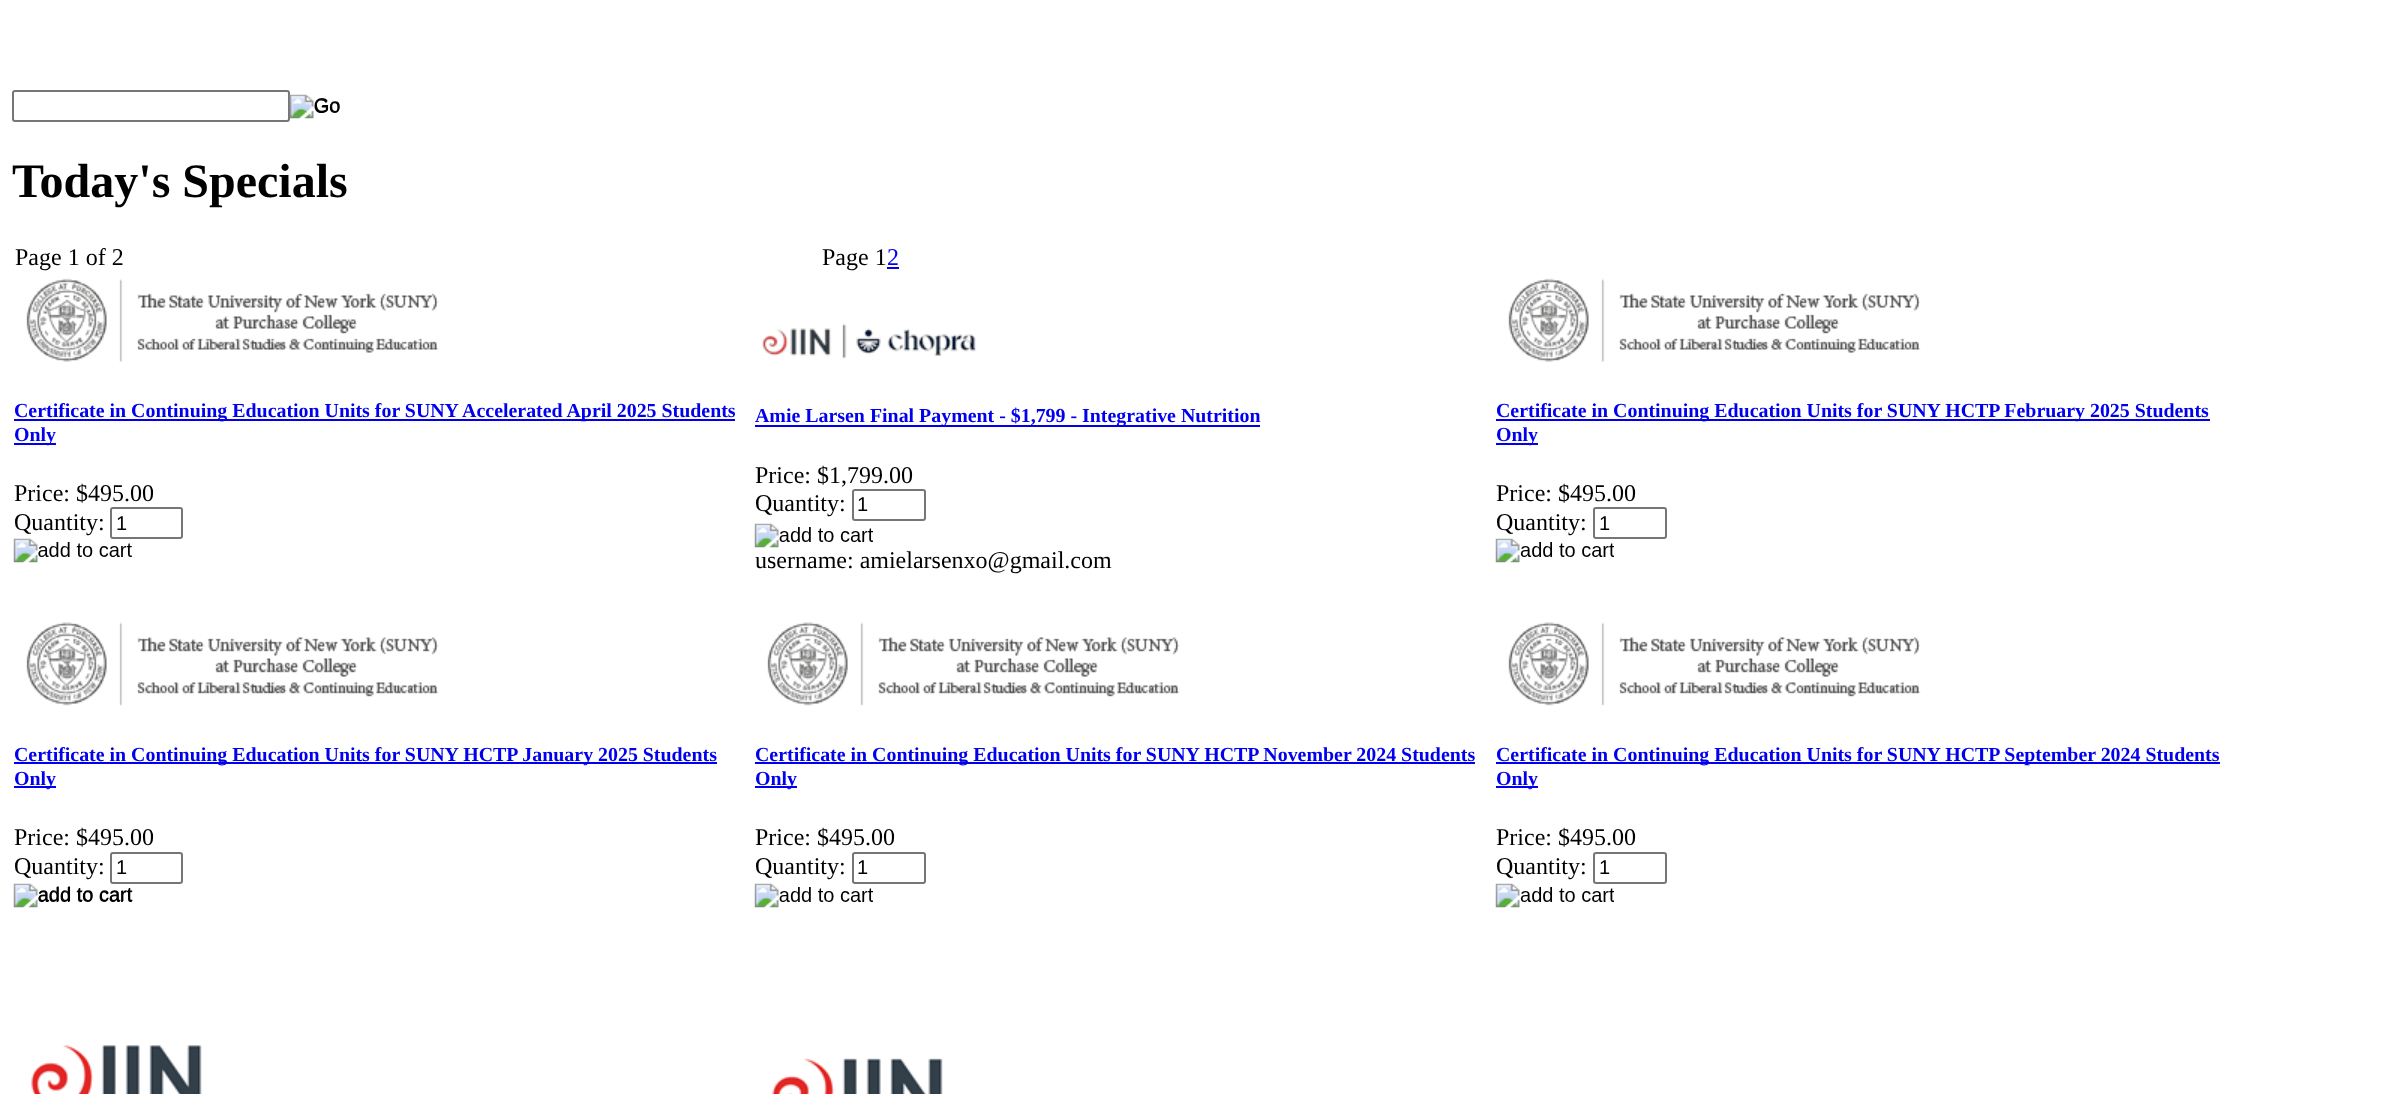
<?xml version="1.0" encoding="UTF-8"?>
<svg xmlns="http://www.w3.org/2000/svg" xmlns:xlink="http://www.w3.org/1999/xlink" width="2390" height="1094">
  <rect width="100%" height="100%" fill="#ffffff" />
  <rect x="13" y="91" width="276" height="30" rx="2" fill="none" stroke="#767676" stroke-width="2" />
  <image x="289" y="94" width="51" height="25" xlink:href="image1.png" />
  <rect x="887" y="267" width="12" height="2" fill="#0000ee" />
  <image x="26" y="278" width="413" height="84" xlink:href="image2.png" />
  <rect x="14" y="419" width="721" height="2" fill="#0000ee" />
  <rect x="14" y="443" width="42" height="2" fill="#0000ee" />
  <rect x="111" y="508" width="71" height="30" rx="2" fill="none" stroke="#767676" stroke-width="2" />
  <image x="13" y="538" width="119" height="25" xlink:href="image3.png" />
  <image x="762" y="323" width="215" height="36" xlink:href="image4.png" />
  <rect x="755" y="425" width="505" height="2" fill="#0000ee" />
  <rect x="853" y="490" width="72" height="30" rx="2" fill="none" stroke="#767676" stroke-width="2" />
  <image x="754" y="523" width="119" height="25" xlink:href="image5.png" />
  <image x="1508" y="278" width="413" height="84" xlink:href="image6.png" />
  <rect x="1496" y="419" width="714" height="2" fill="#0000ee" />
  <rect x="1496" y="443" width="42" height="2" fill="#0000ee" />
  <rect x="1594" y="508" width="72" height="30" rx="2" fill="none" stroke="#767676" stroke-width="2" />
  <image x="1495" y="538" width="119" height="25" xlink:href="image7.png" />
  <image x="26" y="622" width="413" height="84" xlink:href="image8.png" />
  <rect x="14" y="762" width="703" height="2" fill="#0000ee" />
  <rect x="14" y="786" width="42" height="2" fill="#0000ee" />
  <rect x="111" y="853" width="71" height="30" rx="2" fill="none" stroke="#767676" stroke-width="2" />
  <image x="13" y="883" width="119" height="25" xlink:href="image3.png" />
  <image x="767" y="622" width="413" height="84" xlink:href="image8.png" />
  <rect x="755" y="762" width="720" height="2" fill="#0000ee" />
  <rect x="755" y="786" width="42" height="2" fill="#0000ee" />
  <rect x="853" y="853" width="72" height="30" rx="2" fill="none" stroke="#767676" stroke-width="2" />
  <image x="754" y="883" width="119" height="25" xlink:href="image9.png" />
  <image x="1508" y="622" width="413" height="84" xlink:href="image10.png" />
  <rect x="1496" y="762" width="724" height="2" fill="#0000ee" />
  <rect x="1496" y="786" width="42" height="2" fill="#0000ee" />
  <rect x="1594" y="853" width="72" height="30" rx="2" fill="none" stroke="#767676" stroke-width="2" />
  <image x="1495" y="883" width="119" height="25" xlink:href="image7.png" />
  <image x="31" y="1044" width="171" height="50" xlink:href="image11.png" />
  <image x="772" y="1058" width="171" height="36" xlink:href="image12.png" />
  <text x="314" y="112" style="font-family: Liberation Sans; font-size: 20px; fill: #000000">Go</text>
  <text x="12" y="197" style="font-family: Liberation Serif; font-size: 48px; font-weight: bold; fill: #000000">Today's Specials</text>
  <text x="15" y="265" style="font-family: Liberation Serif; font-size: 24px; fill: #000000">Page 1 of 2</text>
  <text x="822" y="265" style="font-family: Liberation Serif; font-size: 24px; fill: #000000">Page 1</text>
  <text x="887" y="265" style="font-family: Liberation Serif; font-size: 24px; fill: #0000ee">2</text>
  <text x="14" y="417" style="font-family: Liberation Serif; font-size: 19.9px; font-weight: bold; fill: #0000ee">Certificate in Continuing Education Units for SUNY Accelerated April 2025 Students</text>
  <text x="14" y="441" style="font-family: Liberation Serif; font-size: 19.9px; font-weight: bold; fill: #0000ee">Only</text>
  <text x="14" y="501" style="font-family: Liberation Serif; font-size: 24px; fill: #000000">Price: $495.00</text>
  <text x="14" y="530" style="font-family: Liberation Serif; font-size: 24px; fill: #000000">Quantity:</text>
  <text x="116" y="530" style="font-family: Liberation Sans; font-size: 20px; fill: #000000">1</text>
  <text x="755" y="422" style="font-family: Liberation Serif; font-size: 19.9px; font-weight: bold; fill: #0000ee">Amie Larsen Final Payment - $1,799 - Integrative Nutrition</text>
  <text x="755" y="483" style="font-family: Liberation Serif; font-size: 24px; fill: #000000">Price: $1,799.00</text>
  <text x="755" y="511" style="font-family: Liberation Serif; font-size: 24px; fill: #000000">Quantity:</text>
  <text x="857" y="511" style="font-family: Liberation Sans; font-size: 20px; fill: #000000">1</text>
  <text x="755" y="568" style="font-family: Liberation Serif; font-size: 24px; fill: #000000">username: amielarsenxo@gmail.com</text>
  <text x="1496" y="417" style="font-family: Liberation Serif; font-size: 19.9px; font-weight: bold; fill: #0000ee">Certificate in Continuing Education Units for SUNY HCTP February 2025 Students</text>
  <text x="1496" y="441" style="font-family: Liberation Serif; font-size: 19.9px; font-weight: bold; fill: #0000ee">Only</text>
  <text x="1496" y="501" style="font-family: Liberation Serif; font-size: 24px; fill: #000000">Price: $495.00</text>
  <text x="1496" y="530" style="font-family: Liberation Serif; font-size: 24px; fill: #000000">Quantity:</text>
  <text x="1599" y="530" style="font-family: Liberation Sans; font-size: 20px; fill: #000000">1</text>
  <text x="14" y="761" style="font-family: Liberation Serif; font-size: 19.9px; font-weight: bold; fill: #0000ee">Certificate in Continuing Education Units for SUNY HCTP January 2025 Students</text>
  <text x="14" y="785" style="font-family: Liberation Serif; font-size: 19.9px; font-weight: bold; fill: #0000ee">Only</text>
  <text x="14" y="845" style="font-family: Liberation Serif; font-size: 24px; fill: #000000">Price: $495.00</text>
  <text x="14" y="874" style="font-family: Liberation Serif; font-size: 24px; fill: #000000">Quantity:</text>
  <text x="116" y="874" style="font-family: Liberation Sans; font-size: 20px; fill: #000000">1</text>
  <text x="38" y="901" style="font-family: Liberation Sans; font-size: 20px; fill: #000000">add to cart</text>
  <text x="755" y="761" style="font-family: Liberation Serif; font-size: 19.9px; font-weight: bold; fill: #0000ee">Certificate in Continuing Education Units for SUNY HCTP November 2024 Students</text>
  <text x="755" y="785" style="font-family: Liberation Serif; font-size: 19.9px; font-weight: bold; fill: #0000ee">Only</text>
  <text x="755" y="845" style="font-family: Liberation Serif; font-size: 24px; fill: #000000">Price: $495.00</text>
  <text x="755" y="874" style="font-family: Liberation Serif; font-size: 24px; fill: #000000">Quantity:</text>
  <text x="857" y="874" style="font-family: Liberation Sans; font-size: 20px; fill: #000000">1</text>
  <text x="1496" y="761" style="font-family: Liberation Serif; font-size: 19.9px; font-weight: bold; fill: #0000ee">Certificate in Continuing Education Units for SUNY HCTP September 2024 Students</text>
  <text x="1496" y="785" style="font-family: Liberation Serif; font-size: 19.9px; font-weight: bold; fill: #0000ee">Only</text>
  <text x="1496" y="845" style="font-family: Liberation Serif; font-size: 24px; fill: #000000">Price: $495.00</text>
  <text x="1496" y="874" style="font-family: Liberation Serif; font-size: 24px; fill: #000000">Quantity:</text>
  <text x="1599" y="874" style="font-family: Liberation Sans; font-size: 20px; fill: #000000">1</text>
</svg>
